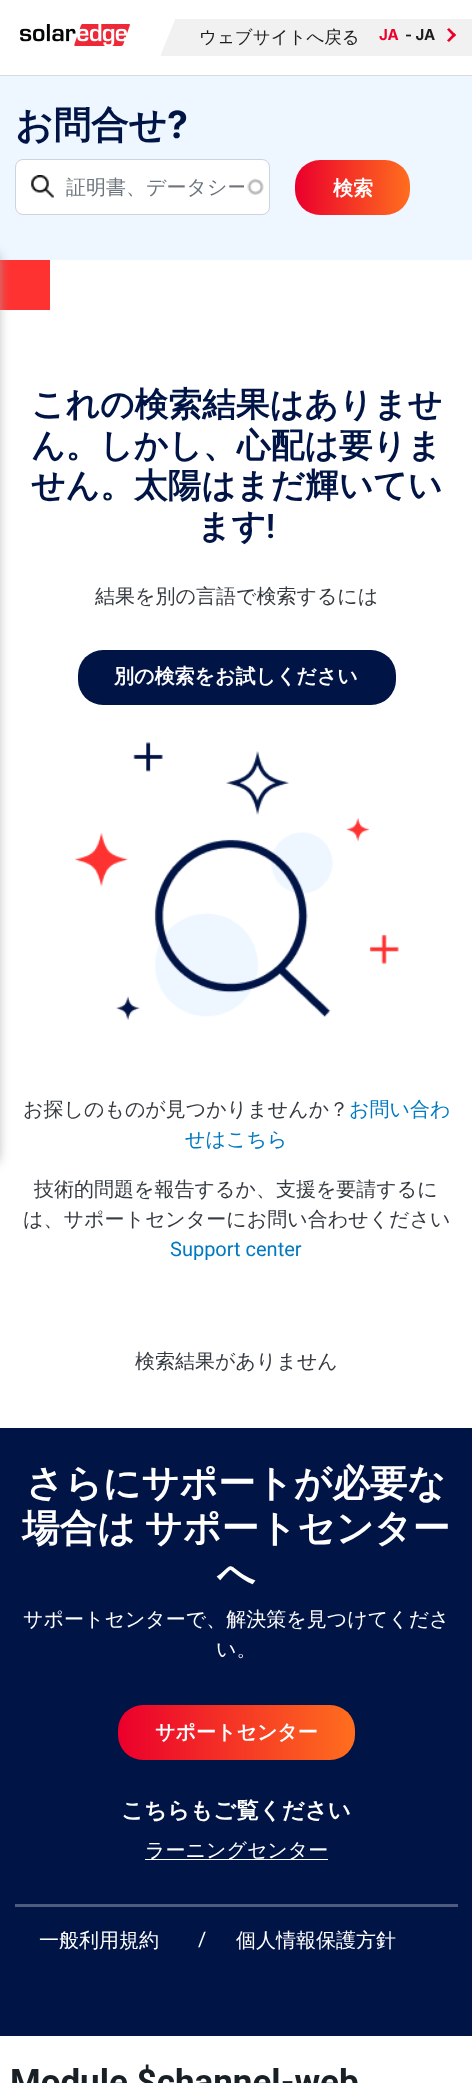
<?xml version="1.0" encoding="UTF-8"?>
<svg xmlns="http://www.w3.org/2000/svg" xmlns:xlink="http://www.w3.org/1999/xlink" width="472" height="2083">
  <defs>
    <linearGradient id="g1" gradientUnits="userSpaceOnUse" x1="295" y1="188" x2="410" y2="188"><stop offset="0.01" stop-color="#eb002c" /><stop offset="1" stop-color="#ff6e1e" /></linearGradient>
    <linearGradient id="g2" gradientUnits="userSpaceOnUse" x1="118" y1="1733" x2="355" y2="1733"><stop offset="0.01" stop-color="#eb002c" /><stop offset="1" stop-color="#ff6e1e" /></linearGradient>
    <clipPath id="clip1"><rect x="66" y="175" width="178" height="26" /></clipPath>
  </defs>
  <rect width="100%" height="100%" fill="#ffffff" />
  <rect y="75" width="472" height="1" fill="#dbdbdc" />
  <image x="20" y="24" width="110" height="22" xlink:href="image1.png" />
  <rect x="161" y="19" width="311" height="37" fill="#f1f1f1" />
  <path d="M 161 10 h 18 l -18 44 z" fill="#ffffff" />
  <path d="M 447 29.5 l 2 -1.5 l 7 7 l -2 2 z" fill="#ec012d" />
  <path d="M 447 40.5 l 7 -7.5 l 2 2 l -7 7 z" fill="#ec012d" />
  <rect y="76" width="472" height="184" fill="#eef6ff" />
  <rect x="16" y="160" width="253" height="54" rx="6" fill="#ffffff" />
  <image x="247" y="178" width="17" height="17" xlink:href="image3.png" />
  <rect x="15.5" y="159.5" width="254" height="55" rx="7.5" fill="none" stroke="#ced4da" />
  <image x="31" y="175" width="23" height="23" xlink:href="image2.png" />
  <rect x="295" y="160" width="115" height="55" rx="25" fill="url(#g1)" />
  <rect y="260" width="50" height="50" fill="#ff3232" />
  <rect x="-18" y="254" width="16" height="907" fill="#aaaaaa" filter="blur(6px)" />
  <rect x="78" y="650" width="318" height="55" rx="25" fill="#001446" />
  <image x="75" y="742" width="324" height="278" xlink:href="image4.png" />
  <rect y="1428" width="472" height="608" fill="#001446" />
  <rect x="118" y="1705" width="237" height="55" rx="25" fill="url(#g2)" />
  <rect x="145" y="1859" width="183" height="1" fill="#ffffff" />
  <rect x="15" y="1904" width="443" height="3" fill="#4d5b7e" />
  <image x="12" y="2064" width="346" height="19" xlink:href="image5.png" />
  <text x="199" y="43" style="font-family: WenQuanYi Zen Hei; font-size: 17.5px; font-weight: 500; fill: #1d1d1f">ウェブサイトへ戻る</text>
  <text x="379" y="40" style="font-family: Inter; font-size: 15px; font-weight: bold; fill: #ec012d">JA</text>
  <text x="405" y="40" style="font-family: Inter; font-size: 15px; font-weight: bold; fill: #1d1d1f">- JA</text>
  <text x="15" y="138" style="font-family: WenQuanYi Zen Hei; font-size: 37.5px; font-weight: bold; fill: #001446">お問合せ</text>
  <text x="167" y="138" style="font-family: Inter; font-size: 37.5px; font-weight: bold; fill: #001446">?</text>
  <g clip-path="url(#clip1)">
    <text x="66" y="194" style="font-family: WenQuanYi Zen Hei; font-size: 20px; font-weight: 500; fill: #6c757d">証明書、データシー</text>
  </g>
  <text x="333" y="195" style="font-family: WenQuanYi Zen Hei; font-size: 20px; font-weight: bold; fill: #ffffff">検索</text>
  <text x="31" y="416" style="font-family: WenQuanYi Zen Hei; font-size: 33.75px; font-weight: bold; fill: #001446">これの検索結果はありませ</text>
  <text x="31" y="457" style="font-family: WenQuanYi Zen Hei; font-size: 33.75px; font-weight: bold; fill: #001446">ん。しかし、心配は要りま</text>
  <text x="31" y="497" style="font-family: WenQuanYi Zen Hei; font-size: 33.75px; font-weight: bold; fill: #001446">せん。太陽はまだ輝いてい</text>
  <text x="197" y="538" style="font-family: WenQuanYi Zen Hei; font-size: 33.75px; font-weight: bold; fill: #001446">ます</text>
  <text x="266" y="538" style="font-family: Roboto; font-size: 33.75px; font-weight: 600; fill: #001446">!</text>
  <text x="95" y="603" style="font-family: WenQuanYi Zen Hei; font-size: 20px; font-weight: 500; fill: #343a40">結果を別の言語で検索するには</text>
  <text x="114" y="683" style="font-family: WenQuanYi Zen Hei; font-size: 20px; font-weight: bold; fill: #ffffff">別の検索をお試しください</text>
  <text x="23" y="1116" style="font-family: WenQuanYi Zen Hei; font-size: 20px; font-weight: 500; fill: #343a40">お探しのものが見つかりませんか？</text>
  <text x="349" y="1116" style="font-family: WenQuanYi Zen Hei; font-size: 20px; font-weight: 500; fill: #0079c0">お問い合わ</text>
  <text x="185" y="1146" style="font-family: WenQuanYi Zen Hei; font-size: 20px; font-weight: 500; fill: #0079c0">せはこちら</text>
  <text x="34" y="1196" style="font-family: WenQuanYi Zen Hei; font-size: 20px; font-weight: 500; fill: #343a40">技術的問題を報告するか、支援を要請するに</text>
  <text x="23" y="1226" style="font-family: WenQuanYi Zen Hei; font-size: 20px; font-weight: 500; fill: #343a40">は、サポートセンターにお問い合わせください</text>
  <text x="170" y="1256" style="font-family: Roboto; font-size: 20px; fill: #0079c0">Support center</text>
  <text x="135" y="1368" style="font-family: WenQuanYi Zen Hei; font-size: 20px; font-weight: 500; fill: #343a40">検索結果がありません</text>
  <text x="26" y="1496" style="font-family: WenQuanYi Zen Hei; font-size: 37.5px; font-weight: bold; fill: #ffffff">さらにサポートが必要な</text>
  <text x="22" y="1541" word-spacing="-2" style="font-family: WenQuanYi Zen Hei; font-size: 37.5px; font-weight: bold; fill: #ffffff">場合は サポートセンター</text>
  <text x="217" y="1586" style="font-family: WenQuanYi Zen Hei; font-size: 37.5px; font-weight: bold; fill: #ffffff">へ</text>
  <text x="23" y="1626" style="font-family: WenQuanYi Zen Hei; font-size: 20px; font-weight: 500; fill: #ffffff">サポートセンターで、解決策を見つけてくださ</text>
  <text x="216" y="1656" style="font-family: WenQuanYi Zen Hei; font-size: 20px; font-weight: 500; fill: #ffffff">い。</text>
  <text x="155" y="1739" style="font-family: WenQuanYi Zen Hei; font-size: 20px; font-weight: bold; fill: #ffffff">サポートセンター</text>
  <text x="121" y="1818" style="font-family: WenQuanYi Zen Hei; font-size: 22.5px; font-weight: bold; fill: #ffffff">こちらもご覧ください</text>
  <text x="145" y="1857" style="font-family: WenQuanYi Zen Hei; font-size: 20px; font-weight: 500; fill: #ffffff">ラーニングセンター</text>
  <text x="39" y="1947" style="font-family: WenQuanYi Zen Hei; font-size: 20px; font-weight: 500; fill: #ffffff">一般利用規約</text>
  <text x="198" y="1946" style="font-family: Roboto; font-size: 20px; fill: #ffffff">/</text>
  <text x="236" y="1947" style="font-family: WenQuanYi Zen Hei; font-size: 20px; font-weight: 500; fill: #ffffff">個人情報保護方針</text>
</svg>
